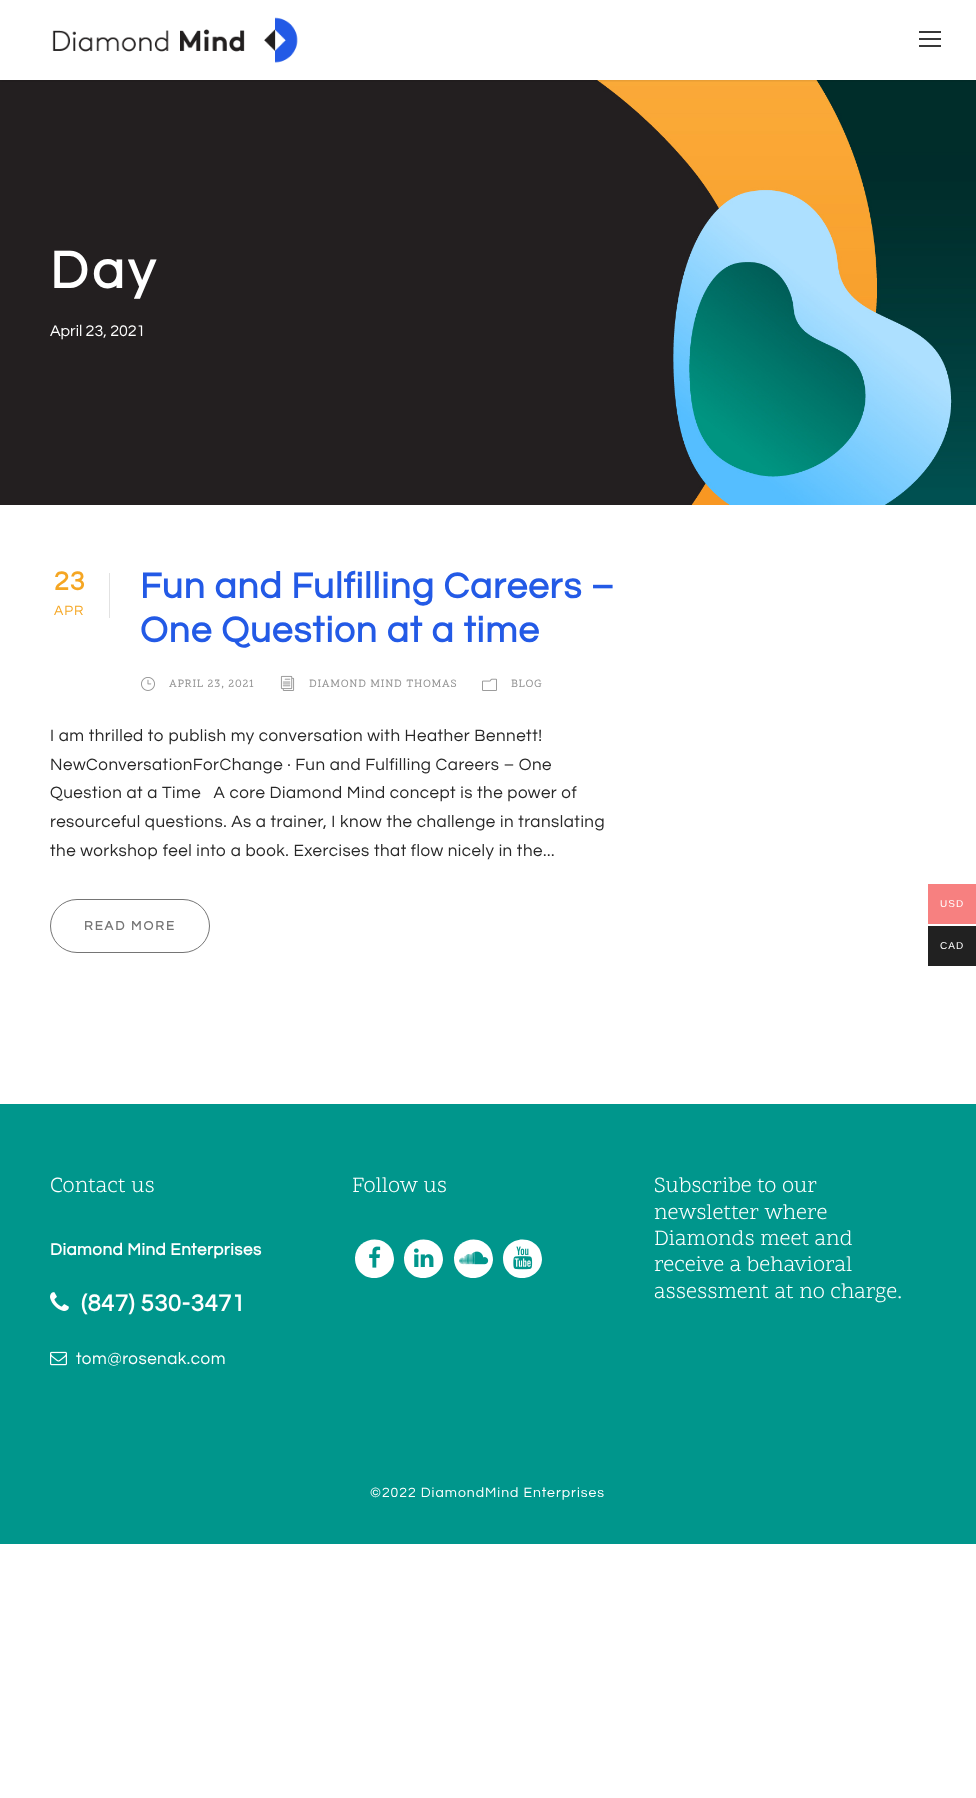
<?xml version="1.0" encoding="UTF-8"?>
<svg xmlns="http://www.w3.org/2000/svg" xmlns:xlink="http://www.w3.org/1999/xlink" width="976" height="1798">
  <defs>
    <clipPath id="clip1"><rect x="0" y="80" width="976" height="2" /></clipPath>
  </defs>
  <rect width="100%" height="100%" fill="#ffffff" />
  <image x="0" y="80" width="976" height="425" xlink:href="image2.png" />
  <g clip-path="url(#clip1)">
    <rect y="1" width="976" height="80" fill="#000000" fill-opacity="0.1" filter="blur(1px)" />
  </g>
  <image x="52" y="17" width="246" height="46" xlink:href="image1.png" />
  <rect x="919" y="31" width="22" height="2" fill="#383838" />
  <rect x="919" y="38" width="22" height="2" fill="#383838" />
  <rect x="919" y="45" width="22" height="2" fill="#383838" />
  <rect x="109" y="573" width="1" height="45" fill="#e2e2e2" />
  <image x="141" y="677" width="14" height="14" xlink:href="image3.png" />
  <image x="280" y="675" width="15" height="16" xlink:href="image4.png" />
  <image x="482" y="678" width="15" height="13" xlink:href="image5.png" />
  <rect x="50.5" y="899.5" width="159" height="53" rx="26.5" fill="none" stroke="#757575" />
  <rect y="1104" width="976" height="440" fill="#00968c" />
  <image x="50" y="1292" width="19" height="19" xlink:href="image6.png" />
  <image x="50" y="1351" width="17" height="15" xlink:href="image7.png" />
  <path d="M 391.5 1249 c 1.5 3.5 2.5 7.5 2.5 11 c -1.5 19 -27 25 -36.5 8.5 c -2 -3.5 -2.5 -7 -2.5 -11 c 1 -19 26.5 -25 36.5 -8.5 z" fill="#ffffff" />
  <image x="369" y="1246" width="12" height="22" xlink:href="image8.png" />
  <path d="M 440.5 1249 c 1.5 3.5 2.5 7.5 2.5 11 c -1.5 19 -27 25 -36.5 8.5 c -2 -3.5 -2.5 -7 -2.5 -11 c 1 -19 26.5 -25 36.5 -8.5 z" fill="#ffffff" />
  <image x="414" y="1248" width="20" height="19" xlink:href="image9.png" />
  <path d="M 490.5 1249 c 1.5 3.5 2.5 7.5 2.5 11 c -1.5 19 -27 25 -36.5 8.5 c -2 -3.5 -2.5 -7 -2.5 -11 c 1 -19 26.5 -25 36.5 -8.5 z" fill="#ffffff" />
  <image x="459" y="1251" width="30" height="14" xlink:href="image10.png" />
  <path d="M 539.5 1249 c 1.5 3.5 2.5 7.5 2.5 11 c -1.5 19 -27 25 -36.5 8.5 c -2 -3.5 -2.5 -7 -2.5 -11 c 1 -19 26.5 -25 36.5 -8.5 z" fill="#ffffff" />
  <image x="513" y="1246" width="20" height="24" xlink:href="image11.png" />
  <rect x="928" y="884" width="48" height="40" fill="#f78080" />
  <rect x="928" y="926" width="48" height="40" fill="#212121" />
  <text x="50" y="288" style="font-family: Questrial; font-size: 54px; font-weight: bold; letter-spacing: 4px; fill: #ffffff">Day</text>
  <text x="50" y="336" style="font-family: Questrial; font-size: 16px; fill: #ffffff">April 23, 2021</text>
  <text x="54" y="590" style="font-family: Questrial; font-size: 27px; font-weight: bold; letter-spacing: 1px; fill: #f5a623">23</text>
  <text x="54" y="615" style="font-family: Questrial; font-size: 14px; letter-spacing: 1px; fill: #f5a623">APR</text>
  <text x="140" y="598" style="font-family: Questrial; font-size: 37px; font-weight: bold; letter-spacing: 1px; fill: #235ae6">Fun and Fulfilling Careers –</text>
  <text x="140" y="642" style="font-family: Questrial; font-size: 37px; font-weight: bold; letter-spacing: 1px; fill: #235ae6">One Question at a time</text>
  <text x="169" y="687" style="font-family: Scope One; font-size: 11px; font-weight: bold; letter-spacing: 1px; fill: #959595">APRIL 23, 2021</text>
  <text x="309" y="687" style="font-family: Scope One; font-size: 11px; font-weight: bold; letter-spacing: 1px; fill: #959595">DIAMOND MIND THOMAS</text>
  <text x="511" y="687" style="font-family: Scope One; font-size: 11px; font-weight: bold; letter-spacing: 1px; fill: #959595">BLOG</text>
  <text x="50" y="741" style="font-family: Questrial; font-size: 17px; letter-spacing: 0.5px; fill: #282828">I am thrilled to publish my conversation with Heather Bennett!</text>
  <text x="50" y="770" style="font-family: Questrial; font-size: 17px; letter-spacing: 0.5px; fill: #282828">NewConversationForChange · Fun and Fulfilling Careers – One</text>
  <text x="50" y="798" style="font-family: Questrial; font-size: 17px; letter-spacing: 0.5px; fill: #282828" xml:space="preserve">Question at a Time   A core Diamond Mind concept is the power of</text>
  <text x="50" y="827" style="font-family: Questrial; font-size: 17px; letter-spacing: 0.5px; fill: #282828">resourceful questions. As a trainer, I know the challenge in translating</text>
  <text x="50" y="856" style="font-family: Questrial; font-size: 17px; letter-spacing: 0.5px; fill: #282828">the workshop feel into a book. Exercises that flow nicely in the...</text>
  <text x="84" y="930" style="font-family: Questrial; font-size: 13px; font-weight: bold; letter-spacing: 2px; fill: #757575">READ MORE</text>
  <text x="50" y="1192" style="font-family: Scope One; font-size: 22px; fill: #ffffff">Contact us</text>
  <text x="50" y="1255" style="font-family: Questrial; font-size: 17px; font-weight: bold; letter-spacing: 0.5px; fill: #ffffff">Diamond Mind Enterprises</text>
  <text x="81" y="1311" style="font-family: Questrial; font-size: 24px; font-weight: bold; letter-spacing: 0.5px; fill: #ffffff">(847) 530-3471</text>
  <text x="76" y="1364" style="font-family: Questrial; font-size: 17px; letter-spacing: 0.5px; fill: #ffffff">tom@rosenak.com</text>
  <text x="352" y="1192" style="font-family: Scope One; font-size: 22px; fill: #ffffff">Follow us</text>
  <text x="654" y="1192" style="font-family: Scope One; font-size: 22px; fill: #ffffff">Subscribe to our</text>
  <text x="654" y="1219" style="font-family: Scope One; font-size: 22px; fill: #ffffff">newsletter where</text>
  <text x="654" y="1245" style="font-family: Scope One; font-size: 22px; fill: #ffffff">Diamonds meet and</text>
  <text x="654" y="1271" style="font-family: Scope One; font-size: 22px; fill: #ffffff">receive a behavioral</text>
  <text x="654" y="1298" style="font-family: Scope One; font-size: 22px; fill: #ffffff">assessment at no charge.</text>
  <text x="370" y="1497" style="font-family: Questrial; font-size: 14px; letter-spacing: 1px; fill: #ffffff">©2022 DiamondMind Enterprises</text>
  <text x="940" y="907" style="font-family: Liberation Sans; font-size: 10px; letter-spacing: 1px; fill: #ffffff">USD</text>
  <text x="940" y="949" style="font-family: Liberation Sans; font-size: 10px; letter-spacing: 1px; fill: #ffffff">CAD</text>
</svg>
